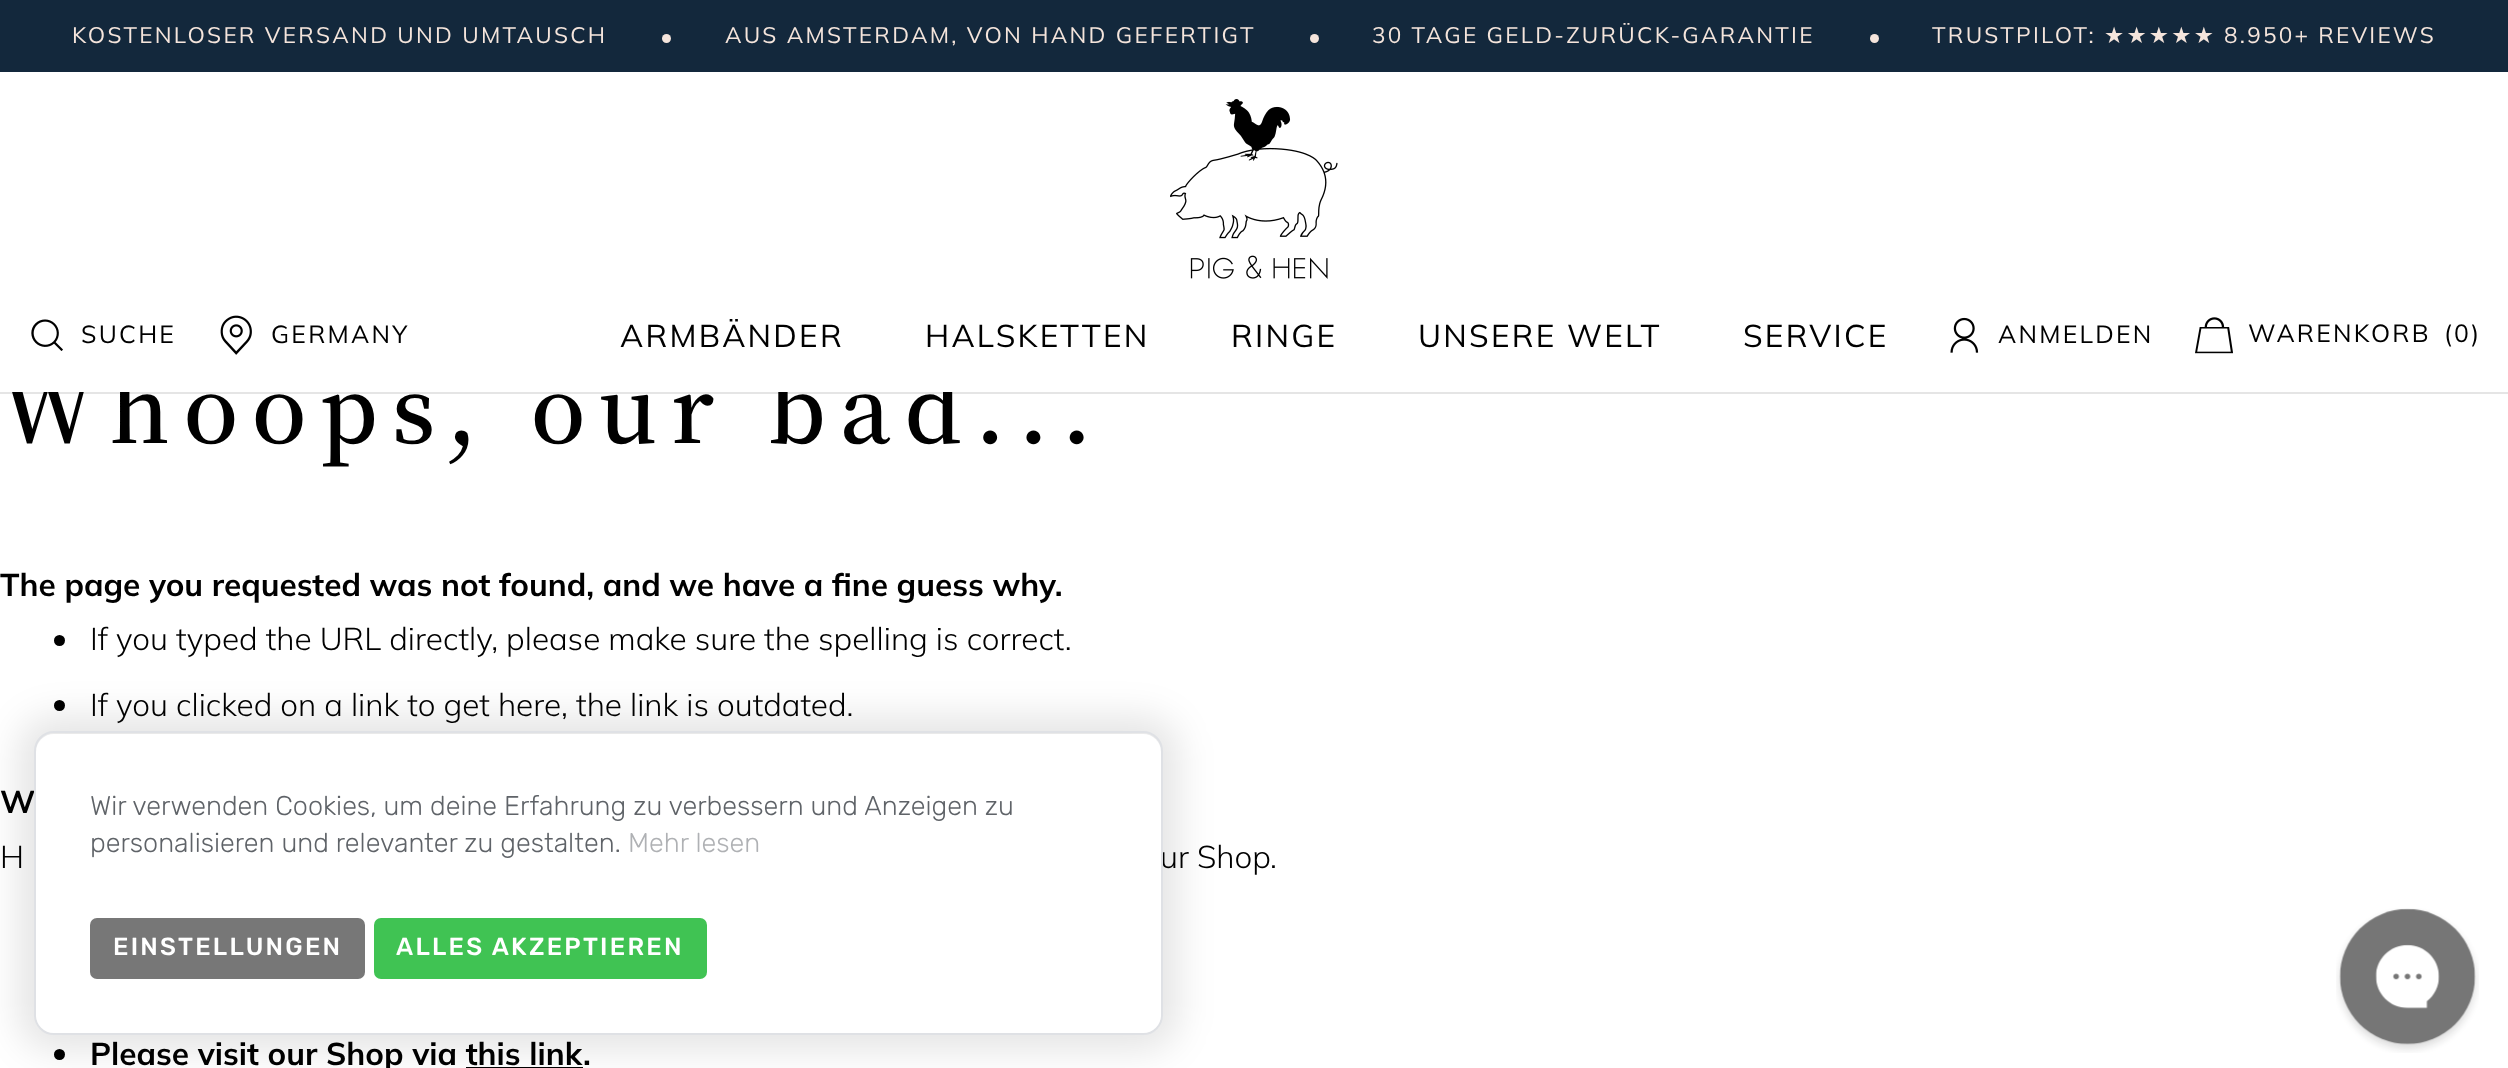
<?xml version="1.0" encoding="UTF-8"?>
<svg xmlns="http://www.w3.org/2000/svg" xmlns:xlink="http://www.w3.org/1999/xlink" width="2508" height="1068">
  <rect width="100%" height="100%" fill="#ffffff" />
  <rect width="2508" height="72" fill="#13283c" />
  <circle cx="666.5" cy="38.5" r="4.5" fill="#f5e5dc" />
  <circle cx="1314.5" cy="38.5" r="4.5" fill="#f5e5dc" />
  <circle cx="1874.5" cy="38.5" r="4.5" fill="#f5e5dc" />
  <image x="1170" y="99" width="168" height="180" xlink:href="image1.png" />
  <image x="31" y="319" width="32" height="32" xlink:href="image2.png" />
  <image x="220" y="315" width="32" height="40" xlink:href="image3.png" />
  <image x="1950" y="317" width="29" height="36" xlink:href="image4.png" />
  <image x="2195" y="317" width="38" height="37" xlink:href="image5.png" />
  <rect y="392" width="2508" height="2" fill="#000000" fill-opacity="0.1" />
  <circle cx="59.5" cy="640.5" r="5.5" fill="#000000" />
  <circle cx="59.5" cy="705.5" r="5.5" fill="#000000" />
  <circle cx="59.5" cy="1054.5" r="5.5" fill="#000000" />
  <rect x="466" y="1067" width="117" height="1" fill="#000000" />
  <rect x="18" y="716" width="1161" height="335" rx="36" fill="#000000" fill-opacity="0.1" filter="blur(18px)" />
  <image x="2336" y="908" width="143" height="145" xlink:href="image6.png" />
  <text x="72" y="43" style="font-family: 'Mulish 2'; font-size: 22.5px; font-weight: 200; letter-spacing: 2.25px; fill: #f5e5dc">KOSTENLOSER VERSAND UND UMTAUSCH</text>
  <text x="725" y="43" style="font-family: 'Mulish 2'; font-size: 22.5px; font-weight: 200; letter-spacing: 2.25px; fill: #f5e5dc">AUS AMSTERDAM, VON HAND GEFERTIGT</text>
  <text x="1372" y="43" style="font-family: 'Mulish 2'; font-size: 22.5px; font-weight: 200; letter-spacing: 2.25px; fill: #f5e5dc">30 TAGE GELD-ZURÜCK-GARANTIE</text>
  <text x="1932" y="43" style="font-family: 'Mulish 2'; font-size: 22.5px; font-weight: 200; letter-spacing: 2.25px; fill: #f5e5dc">TRUSTPILOT:</text>
  <text x="2104" y="43" style="font-family: DejaVu Sans; font-size: 22.5px; letter-spacing: 2.25px; fill: #f5e5dc">★★★★★</text>
  <text x="2224" y="43" style="font-family: 'Mulish 2'; font-size: 22.5px; font-weight: 200; letter-spacing: 2.25px; fill: #f5e5dc">8.950+ REVIEWS</text>
  <text x="81" y="343" style="font-family: 'Mulish 2'; font-size: 24.75px; font-weight: 200; letter-spacing: 2.25px; fill: #000000">SUCHE</text>
  <text x="271" y="343" style="font-family: 'Mulish 2'; font-size: 24.75px; font-weight: 200; letter-spacing: 2.25px; fill: #000000">GERMANY</text>
  <text x="620" y="347" style="font-family: 'Mulish 2'; font-size: 31.5px; font-weight: 200; letter-spacing: 2.25px; fill: #000000">ARMBÄNDER</text>
  <text x="925" y="347" style="font-family: 'Mulish 2'; font-size: 31.5px; font-weight: 200; letter-spacing: 2.25px; fill: #000000">HALSKETTEN</text>
  <text x="1231" y="347" style="font-family: 'Mulish 2'; font-size: 31.5px; font-weight: 200; letter-spacing: 2.25px; fill: #000000">RINGE</text>
  <text x="1418" y="347" style="font-family: 'Mulish 2'; font-size: 31.5px; font-weight: 200; letter-spacing: 2.25px; fill: #000000">UNSERE WELT</text>
  <text x="1743" y="347" style="font-family: 'Mulish 2'; font-size: 31.5px; font-weight: 200; letter-spacing: 2.25px; fill: #000000">SERVICE</text>
  <text x="1998" y="343" style="font-family: 'Mulish 2'; font-size: 24.75px; font-weight: 200; letter-spacing: 2.25px; fill: #000000">ANMELDEN</text>
  <text x="2248" y="342" style="font-family: 'Mulish 2'; font-size: 24.75px; font-weight: 200; letter-spacing: 2.25px; fill: #000000">WARENKORB</text>
  <text x="2444" y="342" style="font-family: 'Mulish 2'; font-size: 24.75px; font-weight: 200; letter-spacing: 2.25px; fill: #000000">(0)</text>
  <text x="0" y="443" word-spacing="4" style="font-family: Noto Serif JP; font-size: 90px; font-weight: 600; letter-spacing: 13.5px; fill: #000000">Whoops, our bad...</text>
  <rect x="1" y="369" width="953" height="23" fill="#ffffff" />
  <text x="0" y="596" style="font-family: Mulish; font-size: 31.5px; font-weight: bold; fill: #000000">The page you requested was not found, and we have a fine guess why.</text>
  <text x="90" y="650" style="font-family: Mulish; font-size: 31.5px; font-weight: 200; fill: #000000">If you typed the URL directly, please make sure the spelling is correct.</text>
  <text x="90" y="716" style="font-family: Mulish; font-size: 31.5px; font-weight: 200; fill: #000000">If you clicked on a link to get here, the link is outdated.</text>
  <text x="0" y="813" style="font-family: Mulish; font-size: 31.5px; font-weight: bold; fill: #000000">W</text>
  <text x="0" y="868" style="font-family: Mulish; font-size: 31.5px; font-weight: 200; fill: #000000">H</text>
  <text x="1160" y="868" style="font-family: Mulish; font-size: 31.5px; font-weight: 200; fill: #000000">ur Shop.</text>
  <text x="90" y="1065" style="font-family: Mulish; font-size: 31.5px; font-weight: bold; fill: #000000">Please visit our Shop via this link</text>
  <text x="583" y="1065" style="font-family: Mulish; font-size: 31.5px; font-weight: bold; fill: #000000">.</text>
  <rect x="35" y="732" width="1127" height="302" rx="19" fill="none" stroke="#dfe1e5" stroke-width="2" />
  <rect x="36" y="734" width="1125" height="299" rx="18" fill="#ffffff" />
  <text x="90" y="815" style="font-family: Rubik; font-size: 27px; font-weight: 300; fill: #5f6368">Wir verwenden Cookies, um deine Erfahrung zu verbessern und Anzeigen zu</text>
  <text x="90" y="852" style="font-family: Rubik; font-size: 27px; font-weight: 300; fill: #5f6368">personalisieren und relevanter zu gestalten.</text>
  <text x="628" y="852" style="font-family: Rubik; font-size: 27px; font-weight: 300; fill: #afb1b4">Mehr lesen</text>
  <rect x="90" y="918" width="275" height="61" rx="7" fill="#777777" />
  <text x="113" y="955" style="font-family: Rubik; font-size: 24.75px; font-weight: 500; letter-spacing: 2.25px; fill: #ffffff">EINSTELLUNGEN</text>
  <rect x="374" y="918" width="333" height="61" rx="7" fill="#40c353" />
  <text x="396" y="955" style="font-family: Rubik; font-size: 24.75px; font-weight: 500; letter-spacing: 2.25px; fill: #ffffff">ALLES AKZEPTIEREN</text>
</svg>
